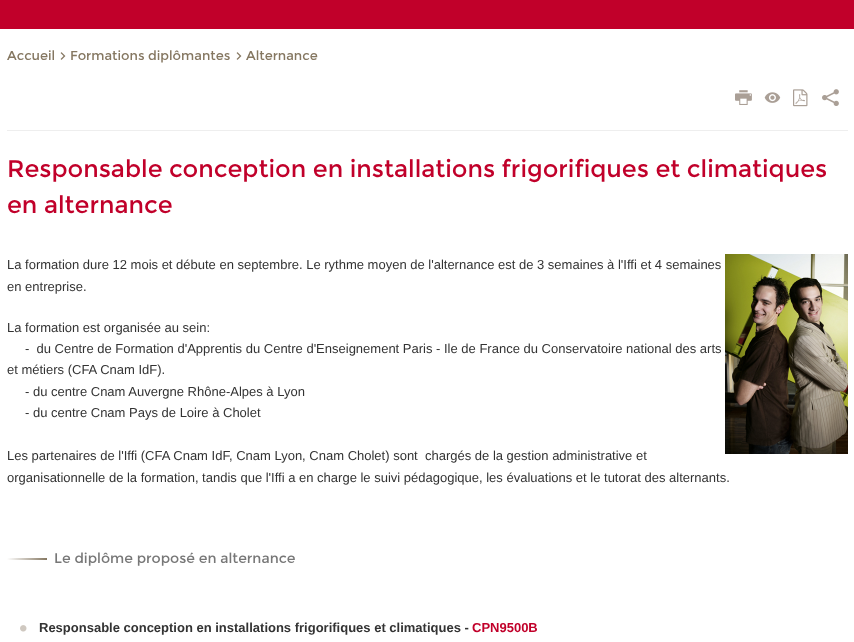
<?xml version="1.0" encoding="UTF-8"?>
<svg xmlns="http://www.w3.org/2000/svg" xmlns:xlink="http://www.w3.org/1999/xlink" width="854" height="642">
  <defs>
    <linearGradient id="g1" gradientUnits="userSpaceOnUse" x1="7" y1="559" x2="47" y2="559"><stop offset="0" stop-color="#ffffff" /><stop offset="1" stop-color="#857761" /></linearGradient>
  </defs>
  <rect width="100%" height="100%" fill="#c1002a" />
  <rect y="29" width="854" height="613" fill="#ffffff" />
  <rect x="7" y="130" width="841" height="1" fill="#eeeeee" />
  <image x="60" y="52" width="6" height="8" xlink:href="image1.png" />
  <image x="236" y="52" width="6" height="8" xlink:href="image1.png" />
  <image x="735" y="90" width="17" height="15" xlink:href="image2.png" />
  <image x="764" y="92" width="17" height="11" xlink:href="image3.png" />
  <image x="793" y="89" width="15" height="18" xlink:href="image4.png" />
  <image x="822" y="89" width="17" height="17" xlink:href="image5.png" />
  <image x="725" y="254" width="123" height="200" xlink:href="image6.png" />
  <rect x="7" y="558" width="40" height="2" fill="url(#g1)" />
  <image x="20" y="625" width="7" height="7" xlink:href="image7.png" />
  <text x="7" y="60" style="font-family: Montserrat; font-size: 13px; fill: #857761">Accueil</text>
  <text x="70" y="60" style="font-family: Montserrat; font-size: 13px; fill: #857761">Formations diplômantes</text>
  <text x="246" y="60" style="font-family: Montserrat; font-size: 13px; fill: #857761">Alternance</text>
  <text x="7" y="177" style="font-family: Montserrat; font-size: 24px; fill: #c1002a">Responsable conception en installations frigorifiques et climatiques</text>
  <text x="7" y="213" style="font-family: Montserrat; font-size: 24px; fill: #c1002a">en alternance</text>
  <text x="7" y="269" style="font-family: Liberation Sans; font-size: 13px; fill: #333333">La formation dure 12 mois et débute en septembre. Le rythme moyen de l'alternance est de 3 semaines à l'Iffi et 4 semaines</text>
  <text x="7" y="291" style="font-family: Liberation Sans; font-size: 13px; fill: #333333">en entreprise.</text>
  <text x="7" y="332" style="font-family: Liberation Sans; font-size: 13px; fill: #333333">La formation est organisée au sein:</text>
  <text x="25" y="353" style="font-family: Liberation Sans; font-size: 13px; fill: #333333" xml:space="preserve">-  du Centre de Formation d'Apprentis du Centre d'Enseignement Paris - Ile de France du Conservatoire national des arts</text>
  <text x="7" y="374" style="font-family: Liberation Sans; font-size: 13px; fill: #333333">et métiers (CFA Cnam IdF).</text>
  <text x="25" y="396" style="font-family: Liberation Sans; font-size: 13px; fill: #333333">- du centre Cnam Auvergne Rhône-Alpes à Lyon</text>
  <text x="25" y="417" style="font-family: Liberation Sans; font-size: 13px; fill: #333333">- du centre Cnam Pays de Loire à Cholet</text>
  <text x="7" y="460" style="font-family: Liberation Sans; font-size: 13px; fill: #333333" xml:space="preserve">Les partenaires de l'Iffi (CFA Cnam IdF, Cnam Lyon, Cnam Cholet) sont  chargés de la gestion administrative et</text>
  <text x="7" y="482" style="font-family: Liberation Sans; font-size: 13px; fill: #333333">organisationnelle de la formation, tandis que l'Iffi a en charge le suivi pédagogique, les évaluations et le tutorat des alternants.</text>
  <text x="54" y="563" style="font-family: Montserrat; font-size: 14px; fill: #777777">Le diplôme proposé en alternance</text>
  <text x="39" y="632" style="font-family: Liberation Sans; font-size: 13px; font-weight: bold; fill: #333333">Responsable conception en installations frigorifiques et climatiques -</text>
  <text x="472" y="632" style="font-family: Liberation Sans; font-size: 13px; font-weight: bold; fill: #c1002a">CPN9500B</text>
</svg>
